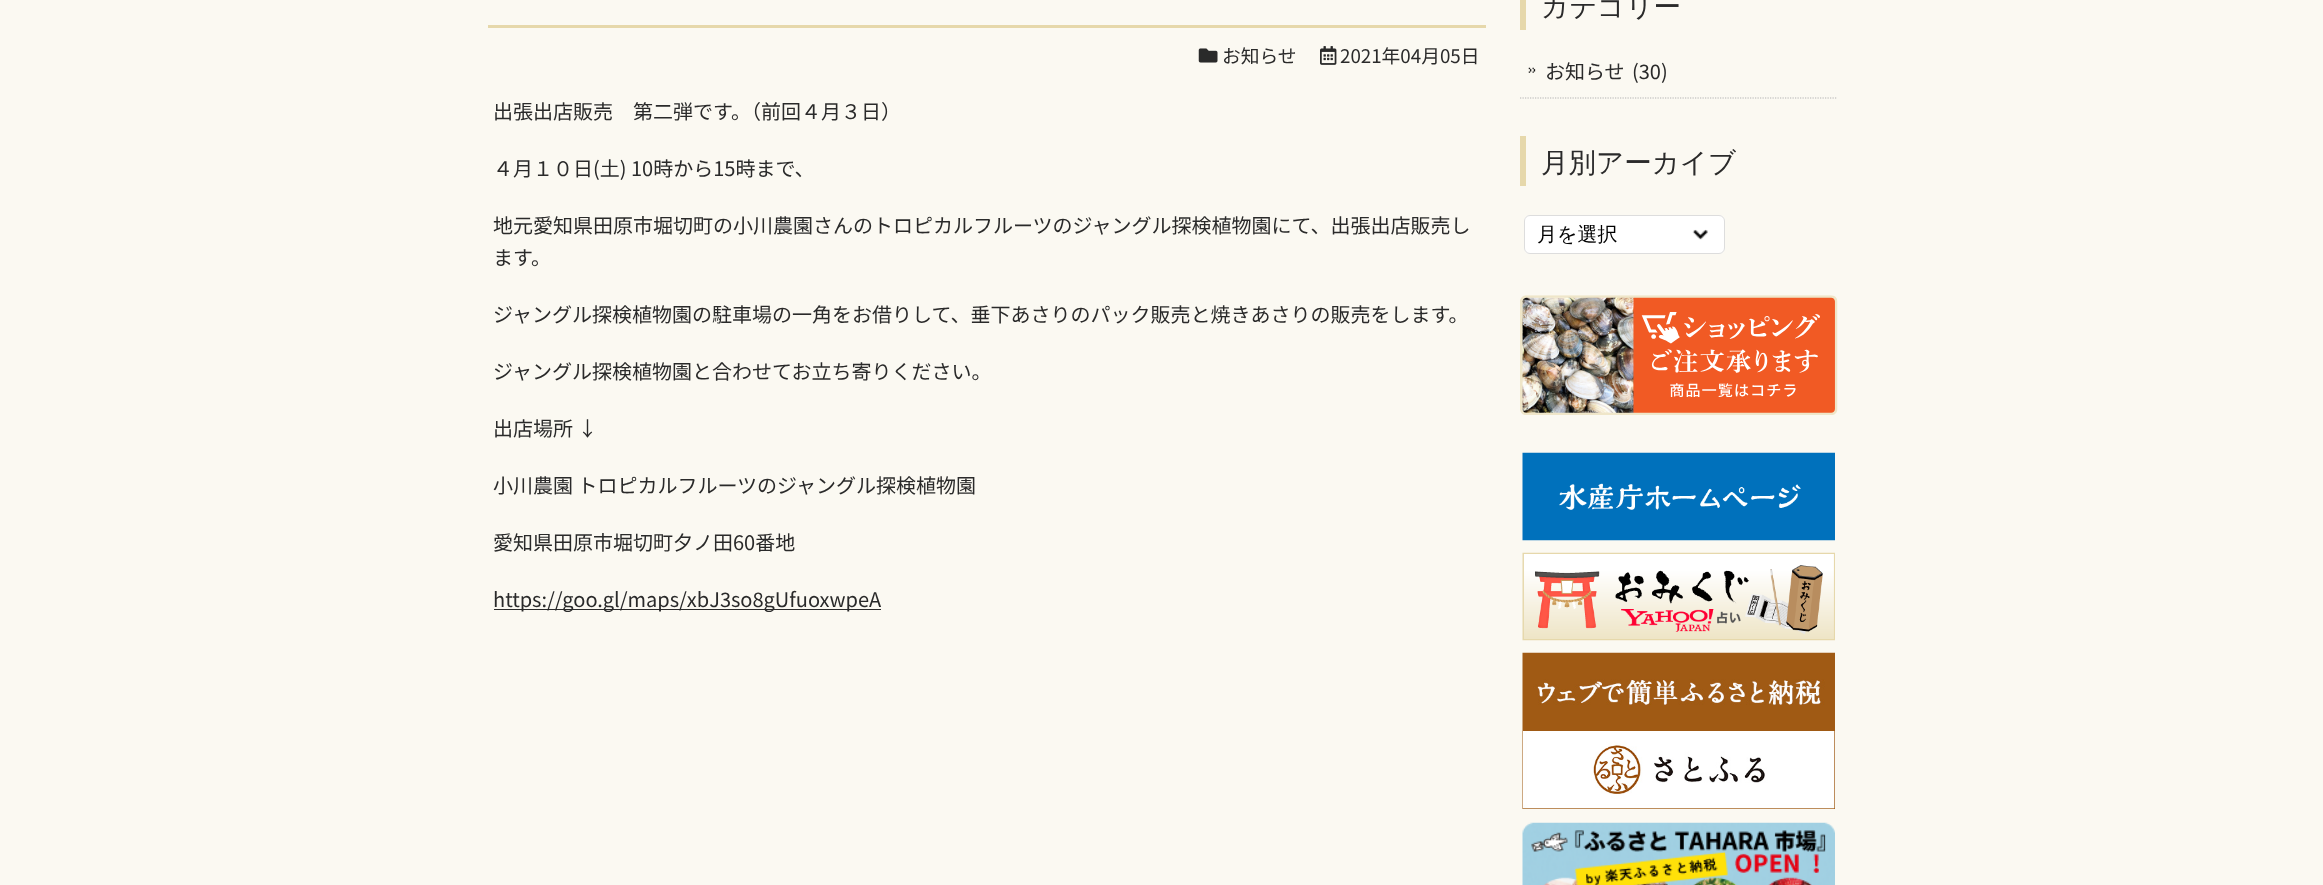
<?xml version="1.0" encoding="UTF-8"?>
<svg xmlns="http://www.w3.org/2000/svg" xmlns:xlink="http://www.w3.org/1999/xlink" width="2323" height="885">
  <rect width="100%" height="100%" fill="#fbf9f2" />
  <rect x="488" y="25" width="998" height="3" fill="#e6d8ab" />
  <image x="1198" y="48" width="20" height="15" xlink:href="image1.png" />
  <image x="1320" y="46" width="17" height="19" xlink:href="image2.png" />
  <rect x="494" y="609" width="387" height="1" fill="#2a2a2a" />
  <rect x="1520" width="6" height="30" fill="#e6d8ab" />
  <path d="M 1520 98 h 317.5" fill="none" stroke="#b3b3b3" stroke-width="1.2" stroke-dasharray="1.25 1.25" />
  <image x="1528" y="67" width="8" height="6" xlink:href="image3.png" />
  <rect x="1520" y="136" width="6" height="50" fill="#e6d8ab" />
  <rect x="1524" y="215" width="201" height="39" rx="6" fill="#ffffff" />
  <image x="1692" y="229" width="16" height="11" xlink:href="image4.png" />
  <rect x="1524.5" y="215.5" width="200" height="38" rx="5.5" fill="none" stroke="#dddddd" />
  <image x="1520" y="295" width="318" height="120" xlink:href="image5.png" />
  <image x="1522" y="452" width="313" height="89" xlink:href="image6.png" />
  <image x="1522" y="552" width="313" height="89" xlink:href="image7.png" />
  <image x="1522" y="652" width="313" height="157" xlink:href="image8.png" />
  <image x="1522" y="822" width="313" height="63" xlink:href="image9.png" />
  <text x="1222" y="63" style="font-family: Noto Sans JP; font-size: 18.75px; fill: #2a2a2a">お知らせ</text>
  <text x="1340" y="63" style="font-family: Noto Sans JP; font-size: 18.75px; fill: #2a2a2a">2021年04月05日</text>
  <text x="493" y="119" style="font-family: Noto Sans JP; font-size: 20px; fill: #2a2a2a">出張出店販売　第二弾です。（前回４月３日）</text>
  <text x="493" y="176" style="font-family: Noto Sans JP; font-size: 20px; fill: #2a2a2a">４月１０日(土) 10時から15時まで、</text>
  <text x="493" y="233" style="font-family: Noto Sans JP; font-size: 20px; fill: #2a2a2a">地元愛知県田原市堀切町の小川農園さんのトロピカルフルーツのジャングル探検植物園にて、出張出店販売し</text>
  <text x="493" y="265" style="font-family: Noto Sans JP; font-size: 20px; fill: #2a2a2a">ます。</text>
  <text x="493" y="322" style="font-family: Noto Sans JP; font-size: 20px; fill: #2a2a2a">ジャングル探検植物園の駐車場の一角をお借りして、垂下あさりのパック販売と焼きあさりの販売をします。</text>
  <text x="493" y="379" style="font-family: Noto Sans JP; font-size: 20px; fill: #2a2a2a">ジャングル探検植物園と合わせてお立ち寄りください。</text>
  <text x="493" y="436" style="font-family: Noto Sans JP; font-size: 20px; fill: #2a2a2a">出店場所 ↓</text>
  <text x="493" y="493" style="font-family: Noto Sans JP; font-size: 20px; fill: #2a2a2a">小川農園 トロピカルフルーツのジャングル探検植物園</text>
  <text x="493" y="550" style="font-family: Noto Sans JP; font-size: 20px; fill: #2a2a2a">愛知県田原市堀切町夕ノ田60番地</text>
  <text x="493" y="607" style="font-family: Noto Sans JP; font-size: 20px; fill: #2a2a2a">https://goo.gl/maps/xbJ3so8gUfuoxwpeA</text>
  <text x="1541" y="16" style="font-family: WenQuanYi Zen Hei; font-size: 27.5px; font-weight: 500; fill: #2a2a2a">カテゴリー</text>
  <text x="1545" y="79" style="font-family: Noto Sans JP; font-size: 20px; fill: #2a2a2a">お知らせ</text>
  <text x="1632" y="79" style="font-family: Noto Sans JP; font-size: 20px; fill: #2a2a2a">(30)</text>
  <text x="1541" y="172" style="font-family: WenQuanYi Zen Hei; font-size: 27.5px; font-weight: 500; fill: #2a2a2a">月別アーカイブ</text>
  <text x="1537" y="241" style="font-family: WenQuanYi Zen Hei; font-size: 20px; font-weight: 500; fill: #000000">月を選択</text>
</svg>
